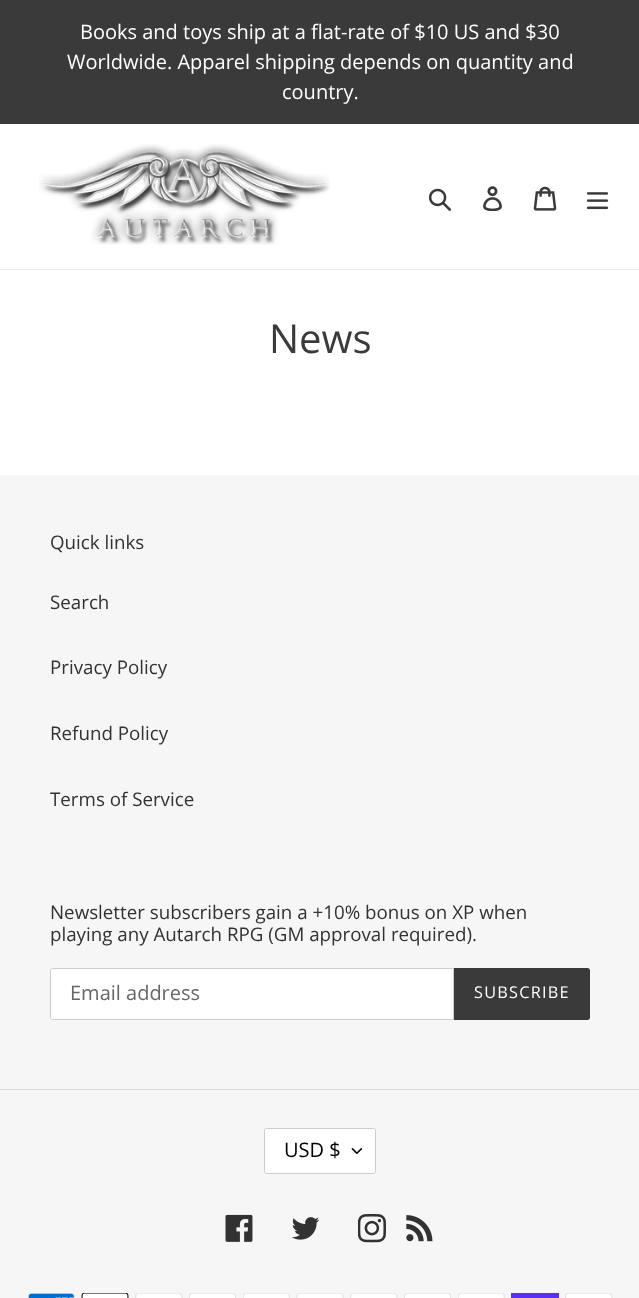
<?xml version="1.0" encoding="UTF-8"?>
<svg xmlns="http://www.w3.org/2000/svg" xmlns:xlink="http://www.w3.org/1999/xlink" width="639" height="1298">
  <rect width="100%" height="100%" fill="#ffffff" />
  <rect width="639" height="124" fill="#3a3a3a" />
  <rect y="269" width="639" height="1" fill="#ebebeb" />
  <image x="39" y="144" width="291" height="101" xlink:href="image1.png" />
  <image x="428" y="188" width="23" height="23" xlink:href="image2.png" />
  <image x="483" y="186" width="19" height="25" xlink:href="image3.png" />
  <image x="533" y="186" width="24" height="25" xlink:href="image4.png" />
  <image x="586" y="192" width="23" height="18" xlink:href="image5.png" />
  <rect y="475" width="639" height="823" fill="#f6f6f6" />
  <path d="M 52.5 968.5 h 401 v 51 h -401 c -1 0 -2 -1 -2 -2 v -47 c 0 -1 1 -2 2 -2 z" fill="#ffffff" stroke="#cccccc" />
  <path d="M 454 968 h 133.5 c 1.5 0 2.5 1 2.5 2.5 v 47 c 0 1.5 -1 2.5 -2.5 2.5 h -133.5 z" fill="#3a3a3a" />
  <rect y="1089" width="639" height="1" fill="#dddddd" />
  <rect x="264" y="1128" width="112" height="46" rx="2.5" fill="#ffffff" />
  <image x="351" y="1148" width="12" height="6" xlink:href="image6.png" />
  <rect x="264.5" y="1128.5" width="111" height="45" rx="2" fill="none" stroke="#cccccc" />
  <image x="225" y="1214" width="28" height="28" xlink:href="image7.png" />
  <image x="291" y="1217" width="29" height="23" xlink:href="image8.png" />
  <image x="358" y="1214" width="28" height="29" xlink:href="image9.png" />
  <image x="406" y="1215" width="27" height="27" xlink:href="image10.png" />
  <image x="28" y="1293" width="47" height="5" xlink:href="image11.png" />
  <image x="81" y="1293" width="48" height="5" xlink:href="image12.png" />
  <image x="135" y="1293" width="48" height="5" xlink:href="image13.png" />
  <image x="189" y="1293" width="47" height="5" xlink:href="image14.png" />
  <image x="243" y="1293" width="47" height="5" xlink:href="image15.png" />
  <image x="296" y="1293" width="48" height="5" xlink:href="image16.png" />
  <image x="350" y="1293" width="48" height="5" xlink:href="image13.png" />
  <image x="404" y="1293" width="47" height="5" xlink:href="image14.png" />
  <image x="458" y="1293" width="47" height="5" xlink:href="image15.png" />
  <rect x="511" y="1293" width="48" height="5" fill="#5a31f4" />
  <image x="565" y="1293" width="48" height="5" xlink:href="image13.png" />
  <text x="80" y="39" style="font-family: Open Sans; font-size: 20px; fill: #ffffff">Books and toys ship at a flat-rate of $10 US and $30</text>
  <text x="67" y="69" style="font-family: Open Sans; font-size: 20px; fill: #ffffff">Worldwide. Apparel shipping depends on quantity and</text>
  <text x="282" y="99" style="font-family: Open Sans; font-size: 20px; fill: #ffffff">country.</text>
  <text x="269" y="353" style="font-family: Open Sans; font-size: 40px; fill: #3a3a3a">News</text>
  <text x="50" y="549" style="font-family: Open Sans; font-size: 18.75px; fill: #333232">Quick links</text>
  <text x="50" y="609" style="font-family: Open Sans; font-size: 18.75px; fill: #333232">Search</text>
  <text x="50" y="674" style="font-family: Open Sans; font-size: 18.75px; fill: #333232">Privacy Policy</text>
  <text x="50" y="740" style="font-family: Open Sans; font-size: 18.75px; fill: #333232">Refund Policy</text>
  <text x="50" y="806" style="font-family: Open Sans; font-size: 18.75px; fill: #333232">Terms of Service</text>
  <text x="50" y="919" style="font-family: Open Sans; font-size: 18.75px; fill: #333232">Newsletter subscribers gain a +10% bonus on XP when</text>
  <text x="50" y="941" style="font-family: Open Sans; font-size: 18.75px; fill: #333232">playing any Autarch RPG (GM approval required).</text>
  <text x="70" y="1000" style="font-family: Open Sans; font-size: 20px; fill: #666666">Email address</text>
  <text x="474" y="998" style="font-family: Open Sans; font-size: 16.25px; letter-spacing: 1.25px; fill: #ffffff">SUBSCRIBE</text>
  <text x="284" y="1157" style="font-family: Open Sans; font-size: 20px; fill: #000000">USD $</text>
</svg>
